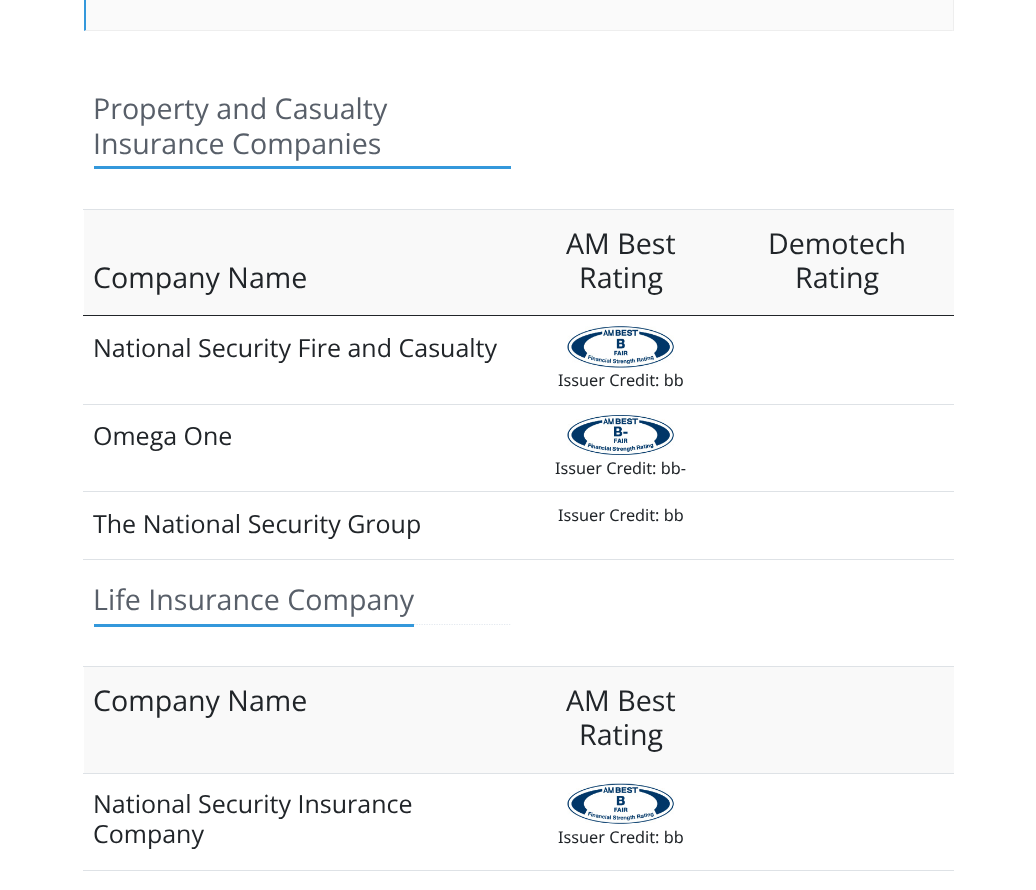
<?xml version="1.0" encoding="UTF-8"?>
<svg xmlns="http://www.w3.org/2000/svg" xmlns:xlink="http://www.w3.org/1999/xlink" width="1036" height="890">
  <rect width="100%" height="100%" fill="#ffffff" />
  <rect x="86" width="867" height="30" fill="#fafafa" />
  <rect x="953" width="1" height="31" fill="#eeeeee" />
  <path d="M 954 31 h -870 l 2 -1 h 866 z" fill="#eeeeee" />
  <path d="M 84 31 v -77 l 2 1 v 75 z" fill="#3498db" />
  <rect x="94" y="166" width="417" height="3" fill="#3498db" />
  <rect x="83" y="209" width="871" height="1" fill="#dee2e6" />
  <rect x="84" y="210" width="870" height="105" fill="#f9f9f9" />
  <rect x="83" y="315" width="871" height="1" fill="#212529" />
  <image x="567" y="326" width="107" height="42" xlink:href="image1.png" />
  <rect x="83" y="404" width="871" height="1" fill="#dee2e6" />
  <image x="567" y="415" width="107" height="40" xlink:href="image2.png" />
  <rect x="83" y="491" width="871" height="1" fill="#dee2e6" />
  <rect x="83" y="559" width="871" height="1" fill="#dee2e6" />
  <path d="M 94 624.5 h 417" fill="none" stroke="#e4e9f0" stroke-width="1.2" stroke-dasharray="1.25 1.25" />
  <rect x="94" y="624" width="320" height="3" fill="#3498db" />
  <rect x="83" y="666" width="871" height="1" fill="#dee2e6" />
  <rect x="84" y="667" width="870" height="106" fill="#f9f9f9" />
  <rect x="83" y="773" width="871" height="1" fill="#dee2e6" />
  <image x="567" y="783" width="107" height="41" xlink:href="image3.png" />
  <rect x="83" y="870" width="871" height="1" fill="#dee2e6" />
  <text x="93" y="119" style="font-family: Open Sans; font-size: 28.6px; fill: #585f69">Property and Casualty</text>
  <text x="93" y="154" style="font-family: Open Sans; font-size: 28.6px; fill: #585f69">Insurance Companies</text>
  <text x="93" y="288" style="font-family: Open Sans; font-size: 28.6px; fill: #212529">Company Name</text>
  <text x="566" y="254" style="font-family: Open Sans; font-size: 28.6px; fill: #212529">AM Best</text>
  <text x="579" y="288" style="font-family: Open Sans; font-size: 28.6px; fill: #212529">Rating</text>
  <text x="768" y="254" style="font-family: Open Sans; font-size: 28.6px; fill: #212529">Demotech</text>
  <text x="795" y="288" style="font-family: Open Sans; font-size: 28.6px; fill: #212529">Rating</text>
  <text x="93" y="357" style="font-family: Open Sans; font-size: 25px; fill: #212529">National Security Fire and Casualty</text>
  <text x="558" y="386" style="font-family: Noto Sans; font-size: 16.25px; fill: #212529">Issuer Credit: bb</text>
  <text x="93" y="445" style="font-family: Open Sans; font-size: 25px; fill: #212529">Omega One</text>
  <text x="555" y="474" style="font-family: Noto Sans; font-size: 16.25px; fill: #212529">Issuer Credit: bb-</text>
  <text x="93" y="533" style="font-family: Open Sans; font-size: 25px; fill: #212529">The National Security Group</text>
  <text x="558" y="521" style="font-family: Noto Sans; font-size: 16.25px; fill: #212529">Issuer Credit: bb</text>
  <text x="93" y="610" style="font-family: Open Sans; font-size: 28.6px; fill: #585f69">Life Insurance Company</text>
  <text x="93" y="711" style="font-family: Open Sans; font-size: 28.6px; fill: #212529">Company Name</text>
  <text x="566" y="711" style="font-family: Open Sans; font-size: 28.6px; fill: #212529">AM Best</text>
  <text x="579" y="745" style="font-family: Open Sans; font-size: 28.6px; fill: #212529">Rating</text>
  <text x="93" y="813" style="font-family: Open Sans; font-size: 25px; fill: #212529">National Security Insurance</text>
  <text x="93" y="843" style="font-family: Open Sans; font-size: 25px; fill: #212529">Company</text>
  <text x="558" y="843" style="font-family: Noto Sans; font-size: 16.25px; fill: #212529">Issuer Credit: bb</text>
</svg>
